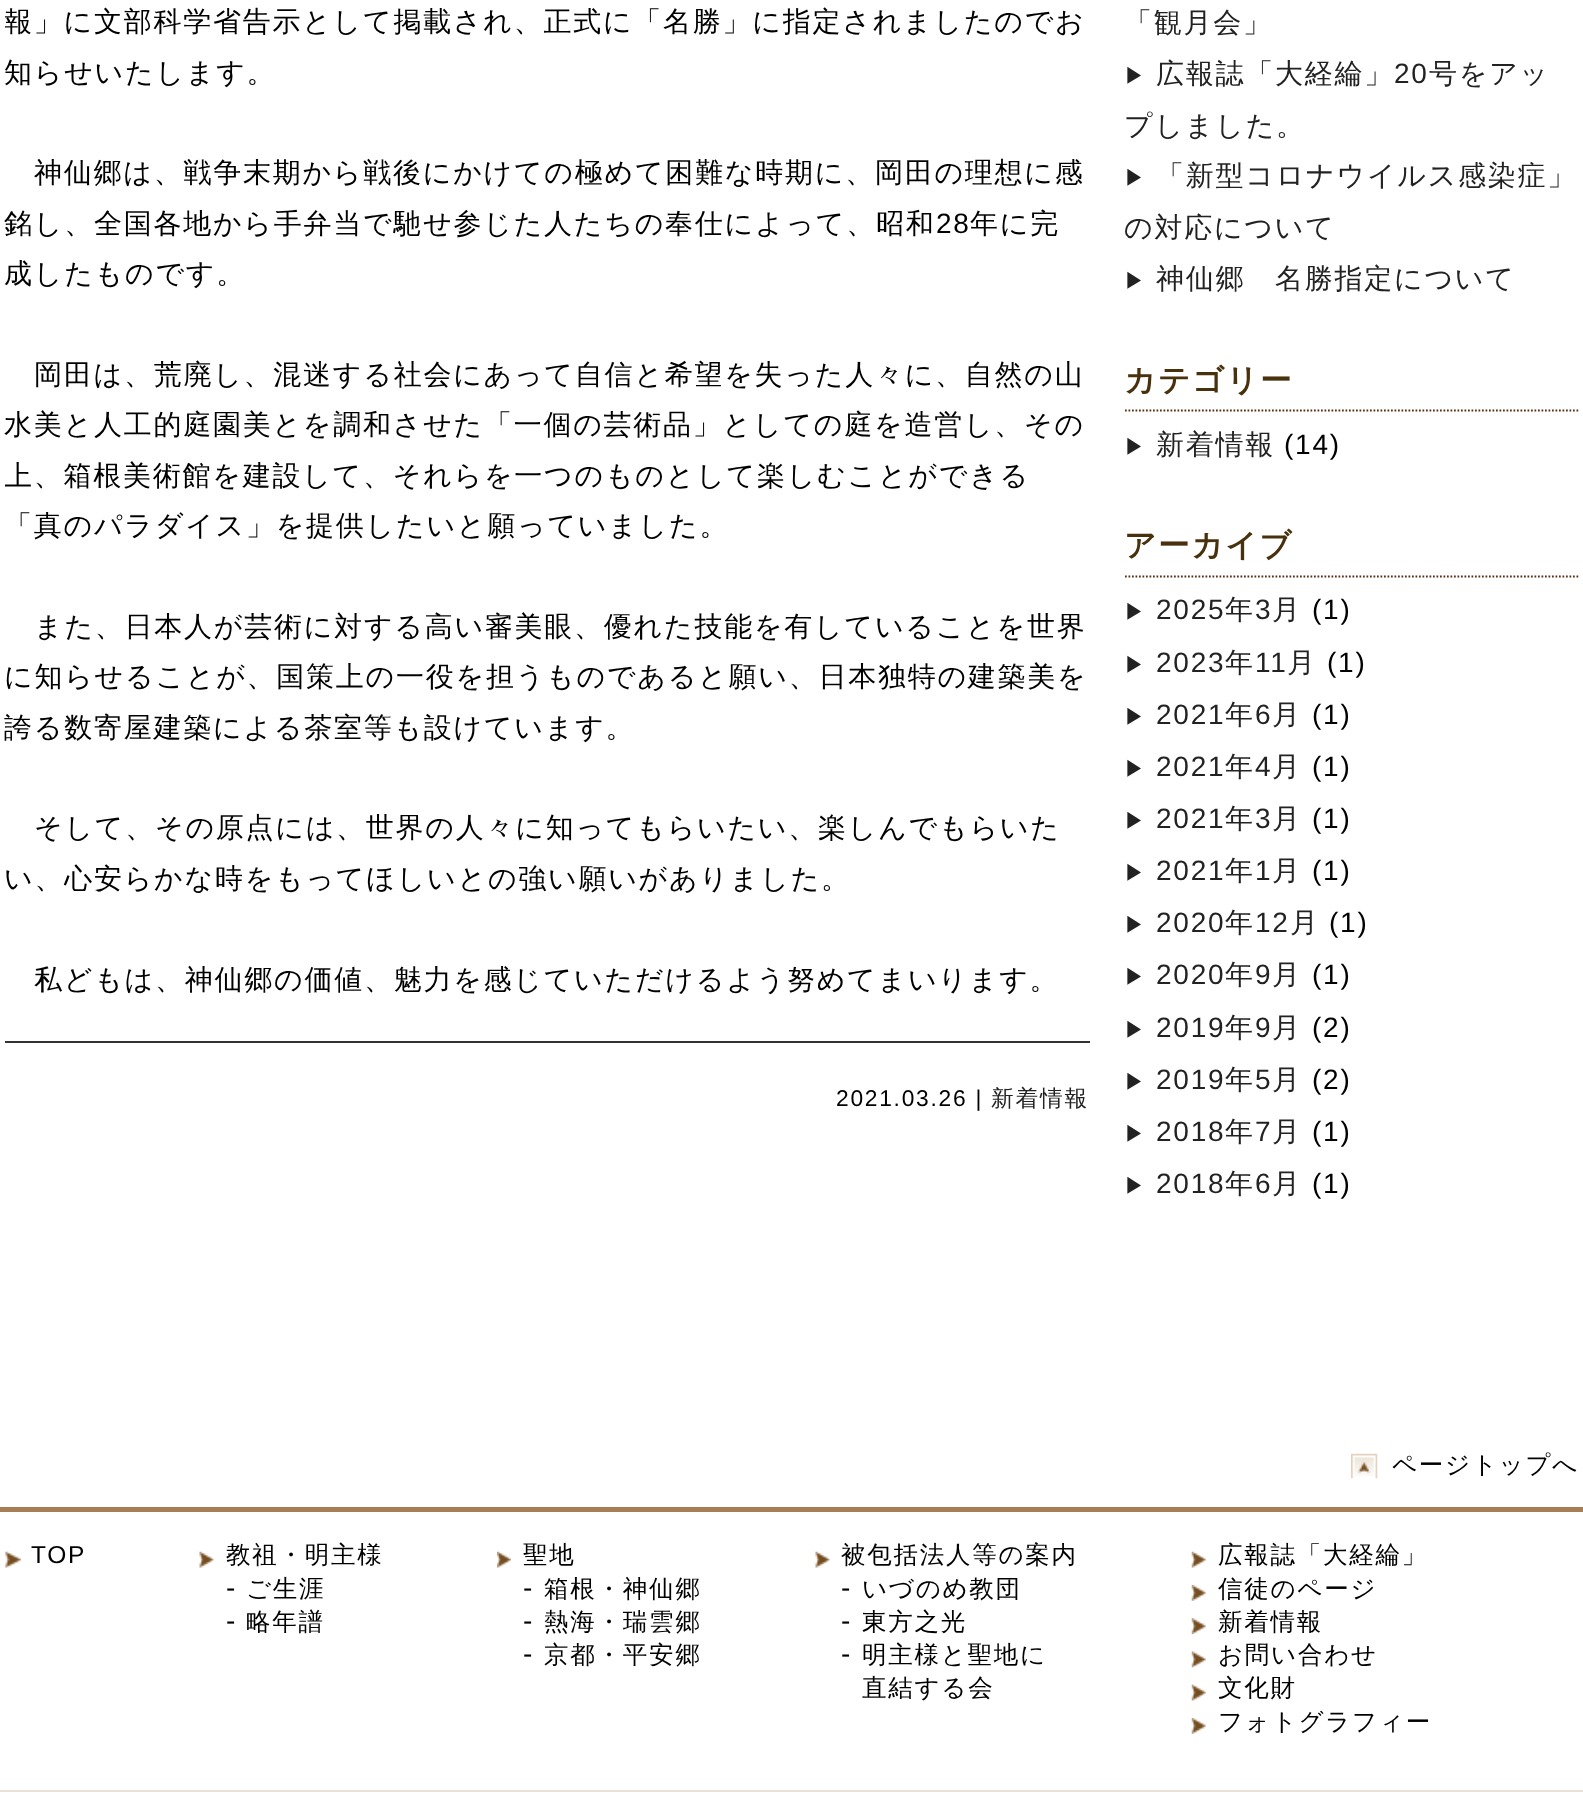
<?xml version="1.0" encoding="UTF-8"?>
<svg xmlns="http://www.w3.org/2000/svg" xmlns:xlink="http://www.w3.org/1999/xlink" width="1583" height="1802">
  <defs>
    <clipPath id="clip1"><rect x="5" width="1575" height="1265" /></clipPath>
  </defs>
  <rect width="100%" height="100%" fill="#ffffff" />
  <rect x="5" y="1041" width="1085" height="2" fill="#333333" />
  <path d="M 1125 410.5 h 455" fill="none" stroke="#5a2f14" stroke-width="1.8" stroke-dasharray="1.75 1.75" />
  <path d="M 1125 576.5 h 455" fill="none" stroke="#5a2f14" stroke-width="1.8" stroke-dasharray="1.75 1.75" />
  <image x="1351" y="1453" width="27" height="26" xlink:href="image1.png" />
  <rect y="1507" width="1583" height="5" fill="#a57f53" />
  <rect y="1790" width="1583" height="2" fill="#eae1d6" />
  <image x="5" y="1551" width="16" height="17" xlink:href="image2.png" />
  <image x="199" y="1551" width="15" height="17" xlink:href="image3.png" />
  <image x="497" y="1551" width="14" height="17" xlink:href="image4.png" />
  <image x="815" y="1551" width="15" height="17" xlink:href="image3.png" />
  <image x="1191" y="1551" width="15" height="17" xlink:href="image5.png" />
  <image x="1191" y="1585" width="15" height="16" xlink:href="image6.png" />
  <image x="1191" y="1618" width="15" height="16" xlink:href="image7.png" />
  <image x="1191" y="1651" width="15" height="17" xlink:href="image8.png" />
  <image x="1191" y="1684" width="15" height="17" xlink:href="image5.png" />
  <image x="1191" y="1718" width="15" height="16" xlink:href="image6.png" />
  <g clip-path="url(#clip1)">
    <text x="4" y="31" style="font-family: WenQuanYi Zen Hei; font-size: 28px; font-weight: 500; letter-spacing: 1.75px; fill: #000000">報」に文部科学省告示として掲載され、正式に「名勝」に指定されましたのでお</text>
  </g>
  <text x="4" y="82" style="font-family: WenQuanYi Zen Hei; font-size: 28px; font-weight: 500; letter-spacing: 1.75px; fill: #000000">知らせいたします。</text>
  <text x="34" y="182" style="font-family: WenQuanYi Zen Hei; font-size: 28px; font-weight: 500; letter-spacing: 1.75px; fill: #000000">神仙郷は、戦争末期から戦後にかけての極めて困難な時期に、岡田の理想に感</text>
  <text x="4" y="233" style="font-family: WenQuanYi Zen Hei; font-size: 28px; font-weight: 500; letter-spacing: 1.75px; fill: #000000">銘し、全国各地から手弁当で馳せ参じた人たちの奉仕によって、昭和</text>
  <text x="936" y="233" style="font-family: Liberation Sans; font-size: 28px; letter-spacing: 1.75px; fill: #000000">28</text>
  <text x="970" y="233" style="font-family: WenQuanYi Zen Hei; font-size: 28px; font-weight: 500; letter-spacing: 1.75px; fill: #000000">年に完</text>
  <text x="4" y="283" style="font-family: WenQuanYi Zen Hei; font-size: 28px; font-weight: 500; letter-spacing: 1.75px; fill: #000000">成したものです。</text>
  <text x="34" y="384" style="font-family: WenQuanYi Zen Hei; font-size: 28px; font-weight: 500; letter-spacing: 1.75px; fill: #000000">岡田は、荒廃し、混迷する社会にあって自信と希望を失った人々に、自然の山</text>
  <text x="4" y="434" style="font-family: WenQuanYi Zen Hei; font-size: 28px; font-weight: 500; letter-spacing: 1.75px; fill: #000000">水美と人工的庭園美とを調和させた「一個の芸術品」としての庭を造営し、その</text>
  <g clip-path="url(#clip1)">
    <text x="4" y="485" style="font-family: WenQuanYi Zen Hei; font-size: 28px; font-weight: 500; letter-spacing: 1.75px; fill: #000000">上、箱根美術館を建設して、それらを一つのものとして楽しむことができる</text>
  </g>
  <text x="4" y="535" style="font-family: WenQuanYi Zen Hei; font-size: 28px; font-weight: 500; letter-spacing: 1.75px; fill: #000000">「真のパラダイス」を提供したいと願っていました。</text>
  <text x="34" y="636" style="font-family: WenQuanYi Zen Hei; font-size: 28px; font-weight: 500; letter-spacing: 1.75px; fill: #000000">また、日本人が芸術に対する高い審美眼、優れた技能を有していることを世界</text>
  <text x="4" y="686" style="font-family: WenQuanYi Zen Hei; font-size: 28px; font-weight: 500; letter-spacing: 1.75px; fill: #000000">に知らせることが、国策上の一役を担うものであると願い、日本独特の建築美を</text>
  <text x="4" y="737" style="font-family: WenQuanYi Zen Hei; font-size: 28px; font-weight: 500; letter-spacing: 1.75px; fill: #000000">誇る数寄屋建築による茶室等も設けています。</text>
  <text x="34" y="837" style="font-family: WenQuanYi Zen Hei; font-size: 28px; font-weight: 500; letter-spacing: 1.75px; fill: #000000">そして、その原点には、世界の人々に知ってもらいたい、楽しんでもらいた</text>
  <text x="4" y="888" style="font-family: WenQuanYi Zen Hei; font-size: 28px; font-weight: 500; letter-spacing: 1.75px; fill: #000000">い、心安らかな時をもってほしいとの強い願いがありました。</text>
  <text x="34" y="989" style="font-family: WenQuanYi Zen Hei; font-size: 28px; font-weight: 500; letter-spacing: 1.75px; fill: #000000">私どもは、神仙郷の価値、魅力を感じていただけるよう努めてまいります。</text>
  <text x="836" y="1106" style="font-family: Liberation Sans; font-size: 22.75px; letter-spacing: 1.75px; fill: #000000">2021.03.26 |</text>
  <text x="991" y="1106" style="font-family: WenQuanYi Zen Hei; font-size: 22.75px; font-weight: 500; letter-spacing: 1.75px; fill: #222222">新着情報</text>
  <text x="1124" y="32" style="font-family: WenQuanYi Zen Hei; font-size: 28px; font-weight: 500; letter-spacing: 1.75px; fill: #222222">「観月会」</text>
  <text x="1124" y="83" style="font-family: WenQuanYi Zen Hei; font-size: 21px; font-weight: 500; letter-spacing: 1.75px; fill: #222222">▶</text>
  <text x="1156" y="83" style="font-family: WenQuanYi Zen Hei; font-size: 28px; font-weight: 500; letter-spacing: 1.75px; fill: #222222">広報誌「大経綸」</text>
  <text x="1394" y="83" style="font-family: Liberation Sans; font-size: 28px; letter-spacing: 1.75px; fill: #222222">20</text>
  <text x="1429" y="83" style="font-family: WenQuanYi Zen Hei; font-size: 28px; font-weight: 500; letter-spacing: 1.75px; fill: #222222">号をアッ</text>
  <text x="1124" y="135" style="font-family: WenQuanYi Zen Hei; font-size: 28px; font-weight: 500; letter-spacing: 1.75px; fill: #222222">プしました。</text>
  <text x="1124" y="185" style="font-family: WenQuanYi Zen Hei; font-size: 21px; font-weight: 500; letter-spacing: 1.75px; fill: #222222">▶</text>
  <text x="1156" y="185" style="font-family: WenQuanYi Zen Hei; font-size: 28px; font-weight: 500; letter-spacing: 1.75px; fill: #222222">「新型コロナウイルス感染症」</text>
  <text x="1124" y="237" style="font-family: WenQuanYi Zen Hei; font-size: 28px; font-weight: 500; letter-spacing: 1.75px; fill: #222222">の対応について</text>
  <text x="1124" y="288" style="font-family: WenQuanYi Zen Hei; font-size: 21px; font-weight: 500; letter-spacing: 1.75px; fill: #222222">▶</text>
  <text x="1156" y="288" style="font-family: WenQuanYi Zen Hei; font-size: 28px; font-weight: 500; letter-spacing: 1.75px; fill: #222222">神仙郷　名勝指定について</text>
  <text x="1124" y="391" style="font-family: WenQuanYi Zen Hei; font-size: 31.5px; font-weight: bold; letter-spacing: 1.75px; fill: #48320e">カテゴリー</text>
  <text x="1124" y="454" style="font-family: WenQuanYi Zen Hei; font-size: 21px; font-weight: 500; letter-spacing: 1.75px; fill: #222222">▶</text>
  <text x="1156" y="454" style="font-family: WenQuanYi Zen Hei; font-size: 28px; font-weight: 500; letter-spacing: 1.75px; fill: #222222">新着情報</text>
  <text x="1284" y="454" style="font-family: Liberation Sans; font-size: 28px; letter-spacing: 1.75px; fill: #000000">(14)</text>
  <text x="1124" y="556" style="font-family: WenQuanYi Zen Hei; font-size: 31.5px; font-weight: bold; letter-spacing: 1.75px; fill: #48320e">アーカイブ</text>
  <text x="1124" y="619" style="font-family: WenQuanYi Zen Hei; font-size: 21px; font-weight: 500; letter-spacing: 1.75px; fill: #222222">▶</text>
  <text x="1156" y="619" style="font-family: Liberation Sans; font-size: 28px; letter-spacing: 1.75px; fill: #222222">2025</text>
  <text x="1225" y="619" style="font-family: WenQuanYi Zen Hei; font-size: 28px; font-weight: 500; letter-spacing: 1.75px; fill: #222222">年</text>
  <text x="1255" y="619" style="font-family: Liberation Sans; font-size: 28px; letter-spacing: 1.75px; fill: #222222">3</text>
  <text x="1272" y="619" style="font-family: WenQuanYi Zen Hei; font-size: 28px; font-weight: 500; letter-spacing: 1.75px; fill: #222222">月</text>
  <text x="1312" y="619" style="font-family: Liberation Sans; font-size: 28px; letter-spacing: 1.75px; fill: #000000">(1)</text>
  <text x="1124" y="672" style="font-family: WenQuanYi Zen Hei; font-size: 21px; font-weight: 500; letter-spacing: 1.75px; fill: #222222">▶</text>
  <text x="1156" y="672" style="font-family: Liberation Sans; font-size: 28px; letter-spacing: 1.75px; fill: #222222">2023</text>
  <text x="1225" y="672" style="font-family: WenQuanYi Zen Hei; font-size: 28px; font-weight: 500; letter-spacing: 1.75px; fill: #222222">年</text>
  <text x="1255" y="672" style="font-family: Liberation Sans; font-size: 28px; letter-spacing: 1.75px; fill: #222222">11</text>
  <text x="1287" y="672" style="font-family: WenQuanYi Zen Hei; font-size: 28px; font-weight: 500; letter-spacing: 1.75px; fill: #222222">月</text>
  <text x="1327" y="672" style="font-family: Liberation Sans; font-size: 28px; letter-spacing: 1.75px; fill: #000000">(1)</text>
  <text x="1124" y="724" style="font-family: WenQuanYi Zen Hei; font-size: 21px; font-weight: 500; letter-spacing: 1.75px; fill: #222222">▶</text>
  <text x="1156" y="724" style="font-family: Liberation Sans; font-size: 28px; letter-spacing: 1.75px; fill: #222222">2021</text>
  <text x="1225" y="724" style="font-family: WenQuanYi Zen Hei; font-size: 28px; font-weight: 500; letter-spacing: 1.75px; fill: #222222">年</text>
  <text x="1255" y="724" style="font-family: Liberation Sans; font-size: 28px; letter-spacing: 1.75px; fill: #222222">6</text>
  <text x="1272" y="724" style="font-family: WenQuanYi Zen Hei; font-size: 28px; font-weight: 500; letter-spacing: 1.75px; fill: #222222">月</text>
  <text x="1312" y="724" style="font-family: Liberation Sans; font-size: 28px; letter-spacing: 1.75px; fill: #000000">(1)</text>
  <text x="1124" y="776" style="font-family: WenQuanYi Zen Hei; font-size: 21px; font-weight: 500; letter-spacing: 1.75px; fill: #222222">▶</text>
  <text x="1156" y="776" style="font-family: Liberation Sans; font-size: 28px; letter-spacing: 1.75px; fill: #222222">2021</text>
  <text x="1225" y="776" style="font-family: WenQuanYi Zen Hei; font-size: 28px; font-weight: 500; letter-spacing: 1.75px; fill: #222222">年</text>
  <text x="1255" y="776" style="font-family: Liberation Sans; font-size: 28px; letter-spacing: 1.75px; fill: #222222">4</text>
  <text x="1272" y="776" style="font-family: WenQuanYi Zen Hei; font-size: 28px; font-weight: 500; letter-spacing: 1.75px; fill: #222222">月</text>
  <text x="1312" y="776" style="font-family: Liberation Sans; font-size: 28px; letter-spacing: 1.75px; fill: #000000">(1)</text>
  <text x="1124" y="828" style="font-family: WenQuanYi Zen Hei; font-size: 21px; font-weight: 500; letter-spacing: 1.75px; fill: #222222">▶</text>
  <text x="1156" y="828" style="font-family: Liberation Sans; font-size: 28px; letter-spacing: 1.75px; fill: #222222">2021</text>
  <text x="1225" y="828" style="font-family: WenQuanYi Zen Hei; font-size: 28px; font-weight: 500; letter-spacing: 1.75px; fill: #222222">年</text>
  <text x="1255" y="828" style="font-family: Liberation Sans; font-size: 28px; letter-spacing: 1.75px; fill: #222222">3</text>
  <text x="1272" y="828" style="font-family: WenQuanYi Zen Hei; font-size: 28px; font-weight: 500; letter-spacing: 1.75px; fill: #222222">月</text>
  <text x="1312" y="828" style="font-family: Liberation Sans; font-size: 28px; letter-spacing: 1.75px; fill: #000000">(1)</text>
  <text x="1124" y="880" style="font-family: WenQuanYi Zen Hei; font-size: 21px; font-weight: 500; letter-spacing: 1.75px; fill: #222222">▶</text>
  <text x="1156" y="880" style="font-family: Liberation Sans; font-size: 28px; letter-spacing: 1.75px; fill: #222222">2021</text>
  <text x="1225" y="880" style="font-family: WenQuanYi Zen Hei; font-size: 28px; font-weight: 500; letter-spacing: 1.75px; fill: #222222">年</text>
  <text x="1255" y="880" style="font-family: Liberation Sans; font-size: 28px; letter-spacing: 1.75px; fill: #222222">1</text>
  <text x="1272" y="880" style="font-family: WenQuanYi Zen Hei; font-size: 28px; font-weight: 500; letter-spacing: 1.75px; fill: #222222">月</text>
  <text x="1312" y="880" style="font-family: Liberation Sans; font-size: 28px; letter-spacing: 1.75px; fill: #000000">(1)</text>
  <text x="1124" y="932" style="font-family: WenQuanYi Zen Hei; font-size: 21px; font-weight: 500; letter-spacing: 1.75px; fill: #222222">▶</text>
  <text x="1156" y="932" style="font-family: Liberation Sans; font-size: 28px; letter-spacing: 1.75px; fill: #222222">2020</text>
  <text x="1225" y="932" style="font-family: WenQuanYi Zen Hei; font-size: 28px; font-weight: 500; letter-spacing: 1.75px; fill: #222222">年</text>
  <text x="1255" y="932" style="font-family: Liberation Sans; font-size: 28px; letter-spacing: 1.75px; fill: #222222">12</text>
  <text x="1290" y="932" style="font-family: WenQuanYi Zen Hei; font-size: 28px; font-weight: 500; letter-spacing: 1.75px; fill: #222222">月</text>
  <text x="1329" y="932" style="font-family: Liberation Sans; font-size: 28px; letter-spacing: 1.75px; fill: #000000">(1)</text>
  <text x="1124" y="984" style="font-family: WenQuanYi Zen Hei; font-size: 21px; font-weight: 500; letter-spacing: 1.75px; fill: #222222">▶</text>
  <text x="1156" y="984" style="font-family: Liberation Sans; font-size: 28px; letter-spacing: 1.75px; fill: #222222">2020</text>
  <text x="1225" y="984" style="font-family: WenQuanYi Zen Hei; font-size: 28px; font-weight: 500; letter-spacing: 1.75px; fill: #222222">年</text>
  <text x="1255" y="984" style="font-family: Liberation Sans; font-size: 28px; letter-spacing: 1.75px; fill: #222222">9</text>
  <text x="1272" y="984" style="font-family: WenQuanYi Zen Hei; font-size: 28px; font-weight: 500; letter-spacing: 1.75px; fill: #222222">月</text>
  <text x="1312" y="984" style="font-family: Liberation Sans; font-size: 28px; letter-spacing: 1.75px; fill: #000000">(1)</text>
  <text x="1124" y="1037" style="font-family: WenQuanYi Zen Hei; font-size: 21px; font-weight: 500; letter-spacing: 1.75px; fill: #222222">▶</text>
  <text x="1156" y="1037" style="font-family: Liberation Sans; font-size: 28px; letter-spacing: 1.75px; fill: #222222">2019</text>
  <text x="1225" y="1037" style="font-family: WenQuanYi Zen Hei; font-size: 28px; font-weight: 500; letter-spacing: 1.75px; fill: #222222">年</text>
  <text x="1255" y="1037" style="font-family: Liberation Sans; font-size: 28px; letter-spacing: 1.75px; fill: #222222">9</text>
  <text x="1272" y="1037" style="font-family: WenQuanYi Zen Hei; font-size: 28px; font-weight: 500; letter-spacing: 1.75px; fill: #222222">月</text>
  <text x="1312" y="1037" style="font-family: Liberation Sans; font-size: 28px; letter-spacing: 1.75px; fill: #000000">(2)</text>
  <text x="1124" y="1089" style="font-family: WenQuanYi Zen Hei; font-size: 21px; font-weight: 500; letter-spacing: 1.75px; fill: #222222">▶</text>
  <text x="1156" y="1089" style="font-family: Liberation Sans; font-size: 28px; letter-spacing: 1.75px; fill: #222222">2019</text>
  <text x="1225" y="1089" style="font-family: WenQuanYi Zen Hei; font-size: 28px; font-weight: 500; letter-spacing: 1.75px; fill: #222222">年</text>
  <text x="1255" y="1089" style="font-family: Liberation Sans; font-size: 28px; letter-spacing: 1.75px; fill: #222222">5</text>
  <text x="1272" y="1089" style="font-family: WenQuanYi Zen Hei; font-size: 28px; font-weight: 500; letter-spacing: 1.75px; fill: #222222">月</text>
  <text x="1312" y="1089" style="font-family: Liberation Sans; font-size: 28px; letter-spacing: 1.75px; fill: #000000">(2)</text>
  <text x="1124" y="1141" style="font-family: WenQuanYi Zen Hei; font-size: 21px; font-weight: 500; letter-spacing: 1.75px; fill: #222222">▶</text>
  <text x="1156" y="1141" style="font-family: Liberation Sans; font-size: 28px; letter-spacing: 1.75px; fill: #222222">2018</text>
  <text x="1225" y="1141" style="font-family: WenQuanYi Zen Hei; font-size: 28px; font-weight: 500; letter-spacing: 1.75px; fill: #222222">年</text>
  <text x="1255" y="1141" style="font-family: Liberation Sans; font-size: 28px; letter-spacing: 1.75px; fill: #222222">7</text>
  <text x="1272" y="1141" style="font-family: WenQuanYi Zen Hei; font-size: 28px; font-weight: 500; letter-spacing: 1.75px; fill: #222222">月</text>
  <text x="1312" y="1141" style="font-family: Liberation Sans; font-size: 28px; letter-spacing: 1.75px; fill: #000000">(1)</text>
  <text x="1124" y="1193" style="font-family: WenQuanYi Zen Hei; font-size: 21px; font-weight: 500; letter-spacing: 1.75px; fill: #222222">▶</text>
  <text x="1156" y="1193" style="font-family: Liberation Sans; font-size: 28px; letter-spacing: 1.75px; fill: #222222">2018</text>
  <text x="1225" y="1193" style="font-family: WenQuanYi Zen Hei; font-size: 28px; font-weight: 500; letter-spacing: 1.75px; fill: #222222">年</text>
  <text x="1255" y="1193" style="font-family: Liberation Sans; font-size: 28px; letter-spacing: 1.75px; fill: #222222">6</text>
  <text x="1272" y="1193" style="font-family: WenQuanYi Zen Hei; font-size: 28px; font-weight: 500; letter-spacing: 1.75px; fill: #222222">月</text>
  <text x="1312" y="1193" style="font-family: Liberation Sans; font-size: 28px; letter-spacing: 1.75px; fill: #000000">(1)</text>
  <text x="1392" y="1473" style="font-family: WenQuanYi Zen Hei; font-size: 24.5px; font-weight: 500; letter-spacing: 1.75px; fill: #000000">ページトップへ</text>
  <text x="31" y="1563" style="font-family: Liberation Sans; font-size: 24.5px; letter-spacing: 1.75px; fill: #000000">TOP</text>
  <text x="226" y="1563" style="font-family: WenQuanYi Zen Hei; font-size: 24.5px; font-weight: 500; letter-spacing: 1.75px; fill: #000000">教祖・明主様</text>
  <text x="226" y="1597" style="font-family: Liberation Sans; font-size: 28px; letter-spacing: 1.75px; fill: #000000">-</text>
  <text x="246" y="1597" style="font-family: WenQuanYi Zen Hei; font-size: 24.5px; font-weight: 500; letter-spacing: 1.75px; fill: #000000">ご生涯</text>
  <text x="226" y="1630" style="font-family: Liberation Sans; font-size: 28px; letter-spacing: 1.75px; fill: #000000">-</text>
  <text x="246" y="1630" style="font-family: WenQuanYi Zen Hei; font-size: 24.5px; font-weight: 500; letter-spacing: 1.75px; fill: #000000">略年譜</text>
  <text x="523" y="1563" style="font-family: WenQuanYi Zen Hei; font-size: 24.5px; font-weight: 500; letter-spacing: 1.75px; fill: #000000">聖地</text>
  <text x="523" y="1597" style="font-family: Liberation Sans; font-size: 28px; letter-spacing: 1.75px; fill: #000000">-</text>
  <text x="544" y="1597" style="font-family: WenQuanYi Zen Hei; font-size: 24.5px; font-weight: 500; letter-spacing: 1.75px; fill: #000000">箱根・神仙郷</text>
  <text x="523" y="1630" style="font-family: Liberation Sans; font-size: 28px; letter-spacing: 1.75px; fill: #000000">-</text>
  <text x="544" y="1630" style="font-family: WenQuanYi Zen Hei; font-size: 24.5px; font-weight: 500; letter-spacing: 1.75px; fill: #000000">熱海・瑞雲郷</text>
  <text x="523" y="1663" style="font-family: Liberation Sans; font-size: 28px; letter-spacing: 1.75px; fill: #000000">-</text>
  <text x="544" y="1663" style="font-family: WenQuanYi Zen Hei; font-size: 24.5px; font-weight: 500; letter-spacing: 1.75px; fill: #000000">京都・平安郷</text>
  <text x="841" y="1563" style="font-family: WenQuanYi Zen Hei; font-size: 24.5px; font-weight: 500; letter-spacing: 1.75px; fill: #000000">被包括法人等の案内</text>
  <text x="841" y="1597" style="font-family: Liberation Sans; font-size: 28px; letter-spacing: 1.75px; fill: #000000">-</text>
  <text x="862" y="1597" style="font-family: WenQuanYi Zen Hei; font-size: 24.5px; font-weight: 500; letter-spacing: 1.75px; fill: #000000">いづのめ教団</text>
  <text x="841" y="1630" style="font-family: Liberation Sans; font-size: 28px; letter-spacing: 1.75px; fill: #000000">-</text>
  <text x="862" y="1630" style="font-family: WenQuanYi Zen Hei; font-size: 24.5px; font-weight: 500; letter-spacing: 1.75px; fill: #000000">東方之光</text>
  <text x="841" y="1663" style="font-family: Liberation Sans; font-size: 28px; letter-spacing: 1.75px; fill: #000000">-</text>
  <text x="862" y="1663" style="font-family: WenQuanYi Zen Hei; font-size: 24.5px; font-weight: 500; letter-spacing: 1.75px; fill: #000000">明主様と聖地に</text>
  <text x="862" y="1696" style="font-family: WenQuanYi Zen Hei; font-size: 24.5px; font-weight: 500; letter-spacing: 1.75px; fill: #000000">直結する会</text>
  <text x="1218" y="1563" style="font-family: WenQuanYi Zen Hei; font-size: 24.5px; font-weight: 500; letter-spacing: 1.75px; fill: #000000">広報誌「大経綸」</text>
  <text x="1218" y="1597" style="font-family: WenQuanYi Zen Hei; font-size: 24.5px; font-weight: 500; letter-spacing: 1.75px; fill: #000000">信徒のページ</text>
  <text x="1218" y="1630" style="font-family: WenQuanYi Zen Hei; font-size: 24.5px; font-weight: 500; letter-spacing: 1.75px; fill: #000000">新着情報</text>
  <text x="1218" y="1663" style="font-family: WenQuanYi Zen Hei; font-size: 24.5px; font-weight: 500; letter-spacing: 1.75px; fill: #000000">お問い合わせ</text>
  <text x="1218" y="1696" style="font-family: WenQuanYi Zen Hei; font-size: 24.5px; font-weight: 500; letter-spacing: 1.75px; fill: #000000">文化財</text>
  <text x="1218" y="1730" style="font-family: WenQuanYi Zen Hei; font-size: 24.5px; font-weight: 500; letter-spacing: 1.75px; fill: #000000">フォトグラフィー</text>
</svg>
